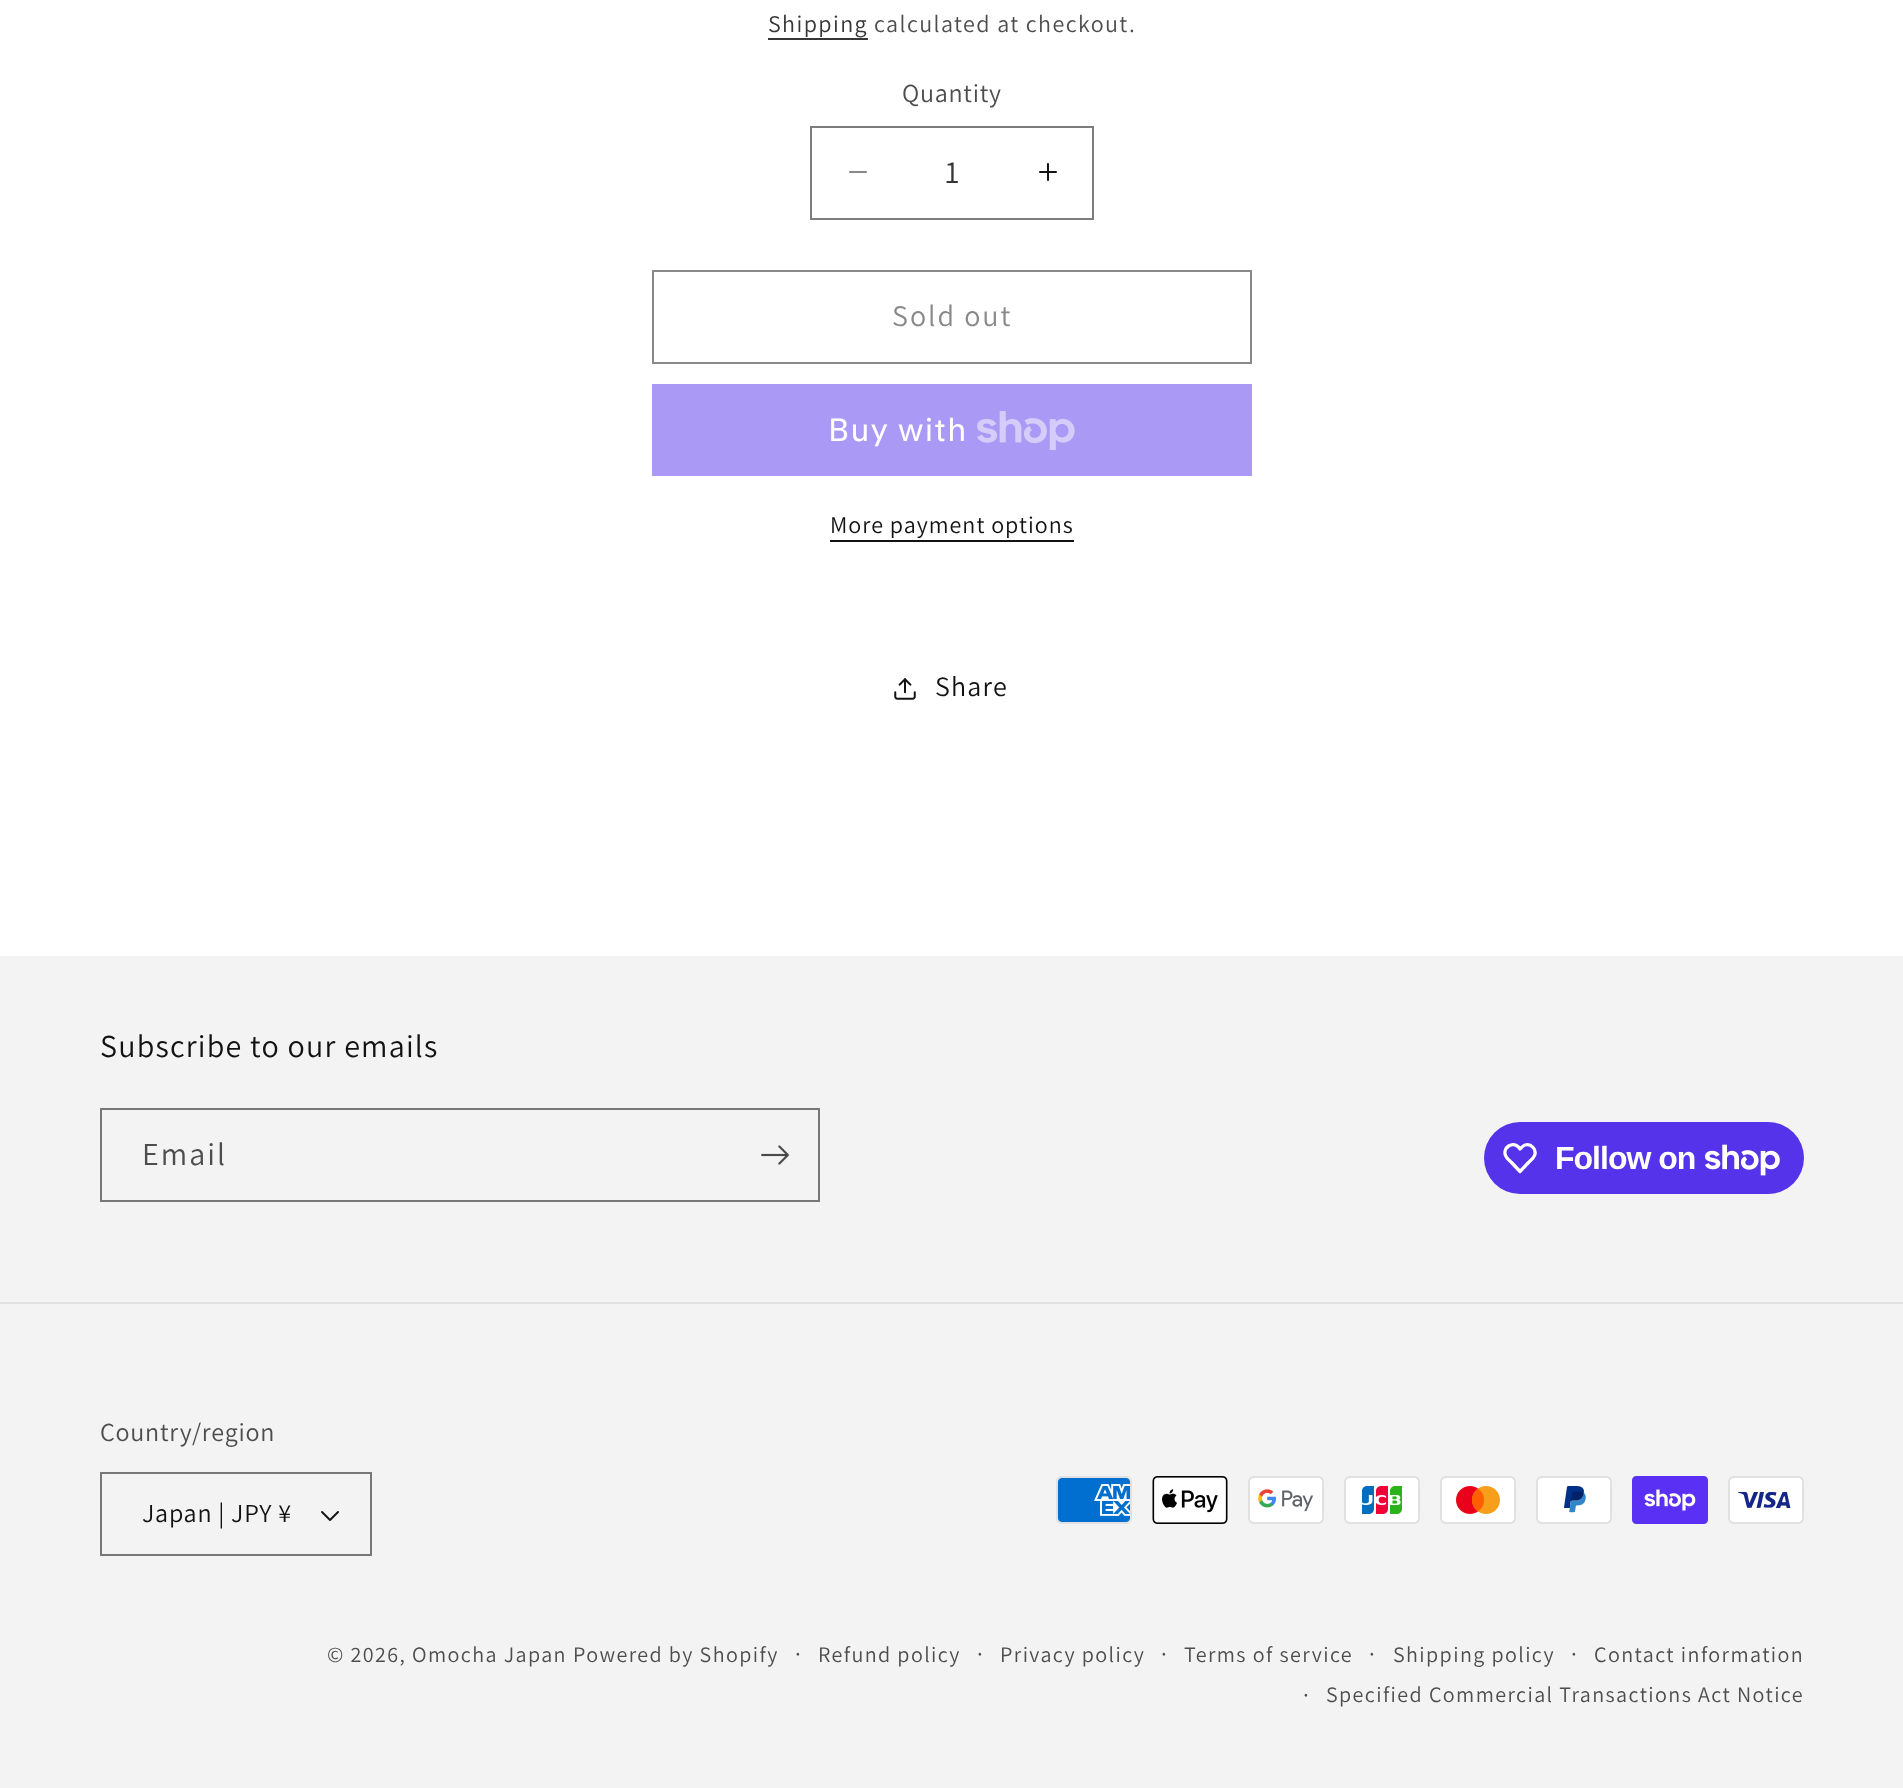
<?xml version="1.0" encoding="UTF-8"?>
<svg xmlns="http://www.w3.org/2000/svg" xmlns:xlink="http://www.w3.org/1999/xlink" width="1903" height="1788">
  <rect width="100%" height="100%" fill="#ffffff" />
  <rect x="768" y="38" width="100" height="2" fill="#363636" />
  <image x="849" y="171" width="18" height="2" xlink:href="image1.png" />
  <image x="1039" y="163" width="18" height="18" xlink:href="image2.png" />
  <rect x="811" y="127" width="282" height="92" fill="none" stroke="#7d7d7d" stroke-width="2" />
  <rect x="653" y="271" width="598" height="92" fill="none" stroke="#898989" stroke-width="2" />
  <rect x="652" y="384" width="600" height="92" fill="#aa99f5" />
  <image x="977" y="411" width="98" height="39" xlink:href="image3.png" />
  <rect x="830" y="540" width="244" height="2" fill="#121212" />
  <image x="894" y="678" width="22" height="22" xlink:href="image4.png" />
  <rect y="956" width="1903" height="832" fill="#f3f3f3" />
  <rect x="101" y="1109" width="718" height="92" fill="none" stroke="#777777" stroke-width="2" />
  <image x="761" y="1145" width="28" height="20" xlink:href="image5.png" />
  <rect x="1484" y="1122" width="320" height="72" rx="36" fill="#5433eb" />
  <path d="M 1518.5 1147 l 1.5 2 c 1.5 -1.5 3 -3.5 5 -4 c 6 -2 12 4.5 9.5 10.5 c -1 3 -4 5 -6 7 l -8.5 9 l -8.5 -9 c -2 -2 -5 -4 -6 -7 c -3 -8 7 -14.5 13 -8.5 z" fill="none" stroke="#ffffff" stroke-width="3.3" stroke-linejoin="round" />
  <image x="1705" y="1144" width="75" height="32" xlink:href="image6.png" />
  <rect y="1302" width="1903" height="2" fill="#e1e1e1" />
  <image x="321" y="1511" width="18" height="10" xlink:href="image7.png" />
  <rect x="101" y="1473" width="270" height="82" fill="none" stroke="#777777" stroke-width="2" />
  <image x="1056" y="1476" width="76" height="48" xlink:href="image8.png" />
  <image x="1152" y="1476" width="76" height="48" xlink:href="image9.png" />
  <image x="1248" y="1476" width="76" height="48" xlink:href="image10.png" />
  <image x="1344" y="1476" width="76" height="48" xlink:href="image11.png" />
  <image x="1440" y="1476" width="76" height="48" xlink:href="image12.png" />
  <image x="1536" y="1476" width="76" height="48" xlink:href="image13.png" />
  <image x="1632" y="1476" width="76" height="48" xlink:href="image14.png" />
  <image x="1728" y="1476" width="76" height="48" xlink:href="image15.png" />
  <text x="768" y="32" style="font-family: Assistant; font-size: 24px; letter-spacing: 1.4px; fill: #363636">Shipping</text>
  <text x="874" y="32" style="font-family: Assistant; font-size: 24px; letter-spacing: 1.4px; fill: #4d4d4d">calculated at checkout.</text>
  <text x="902" y="102" style="font-family: Assistant; font-size: 26px; letter-spacing: 0.75px; fill: #4d4d4d">Quantity</text>
  <text x="945" y="183" style="font-family: Assistant; font-size: 32px; fill: #363636">1</text>
  <text x="892" y="326" style="font-family: Assistant; font-size: 30px; letter-spacing: 2px; fill: #898989">Sold out</text>
  <text x="828" y="441" style="font-family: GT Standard; font-size: 32px; letter-spacing: 1.2px; fill: #ffffff">Buy with</text>
  <text x="830" y="533" style="font-family: Assistant; font-size: 24px; letter-spacing: 1px; fill: #121212">More payment options</text>
  <text x="935" y="696" style="font-family: Assistant; font-size: 28px; letter-spacing: 1.2px; fill: #121212">Share</text>
  <text x="100" y="1057" style="font-family: Assistant; font-size: 32px; letter-spacing: 1.2px; fill: #121212">Subscribe to our emails</text>
  <text x="142" y="1165" style="font-family: Assistant; font-size: 32px; letter-spacing: 2px; fill: #4d4d4d">Email</text>
  <text x="1555" y="1169" style="font-family: Liberation Sans; font-size: 32px; font-weight: bold; letter-spacing: -1px; fill: #ffffff">Follow on</text>
  <text x="100" y="1441" style="font-family: Assistant; font-size: 26px; letter-spacing: 0.75px; fill: #4d4d4d">Country/region</text>
  <text x="142" y="1522" style="font-family: Assistant; font-size: 26px; letter-spacing: 0.75px; fill: #121212">Japan | JPY ¥</text>
  <text x="327" y="1662" style="font-family: Assistant; font-size: 22px; letter-spacing: 1.4px; fill: #4d4d4d">© 2026, Omocha Japan</text>
  <text x="573" y="1662" style="font-family: Assistant; font-size: 22px; letter-spacing: 1.4px; fill: #4d4d4d">Powered by Shopify</text>
  <text x="795" y="1662" style="font-family: Assistant; font-size: 24px; letter-spacing: 1.4px; fill: #4d4d4d">·</text>
  <text x="818" y="1662" style="font-family: Assistant; font-size: 22px; letter-spacing: 1.4px; fill: #4d4d4d">Refund policy</text>
  <text x="977" y="1662" style="font-family: Assistant; font-size: 24px; letter-spacing: 1.4px; fill: #4d4d4d">·</text>
  <text x="1000" y="1662" style="font-family: Assistant; font-size: 22px; letter-spacing: 1.4px; fill: #4d4d4d">Privacy policy</text>
  <text x="1161" y="1662" style="font-family: Assistant; font-size: 24px; letter-spacing: 1.4px; fill: #4d4d4d">·</text>
  <text x="1184" y="1662" style="font-family: Assistant; font-size: 22px; letter-spacing: 1.4px; fill: #4d4d4d">Terms of service</text>
  <text x="1369" y="1662" style="font-family: Assistant; font-size: 24px; letter-spacing: 1.4px; fill: #4d4d4d">·</text>
  <text x="1393" y="1662" style="font-family: Assistant; font-size: 22px; letter-spacing: 1.4px; fill: #4d4d4d">Shipping policy</text>
  <text x="1571" y="1662" style="font-family: Assistant; font-size: 24px; letter-spacing: 1.4px; fill: #4d4d4d">·</text>
  <text x="1594" y="1662" style="font-family: Assistant; font-size: 22px; letter-spacing: 1.4px; fill: #4d4d4d">Contact information</text>
  <text x="1303" y="1703" style="font-family: Assistant; font-size: 24px; letter-spacing: 1.4px; fill: #4d4d4d">·</text>
  <text x="1326" y="1702" style="font-family: Assistant; font-size: 22px; letter-spacing: 1.4px; fill: #4d4d4d">Specified Commercial Transactions Act Notice</text>
</svg>
